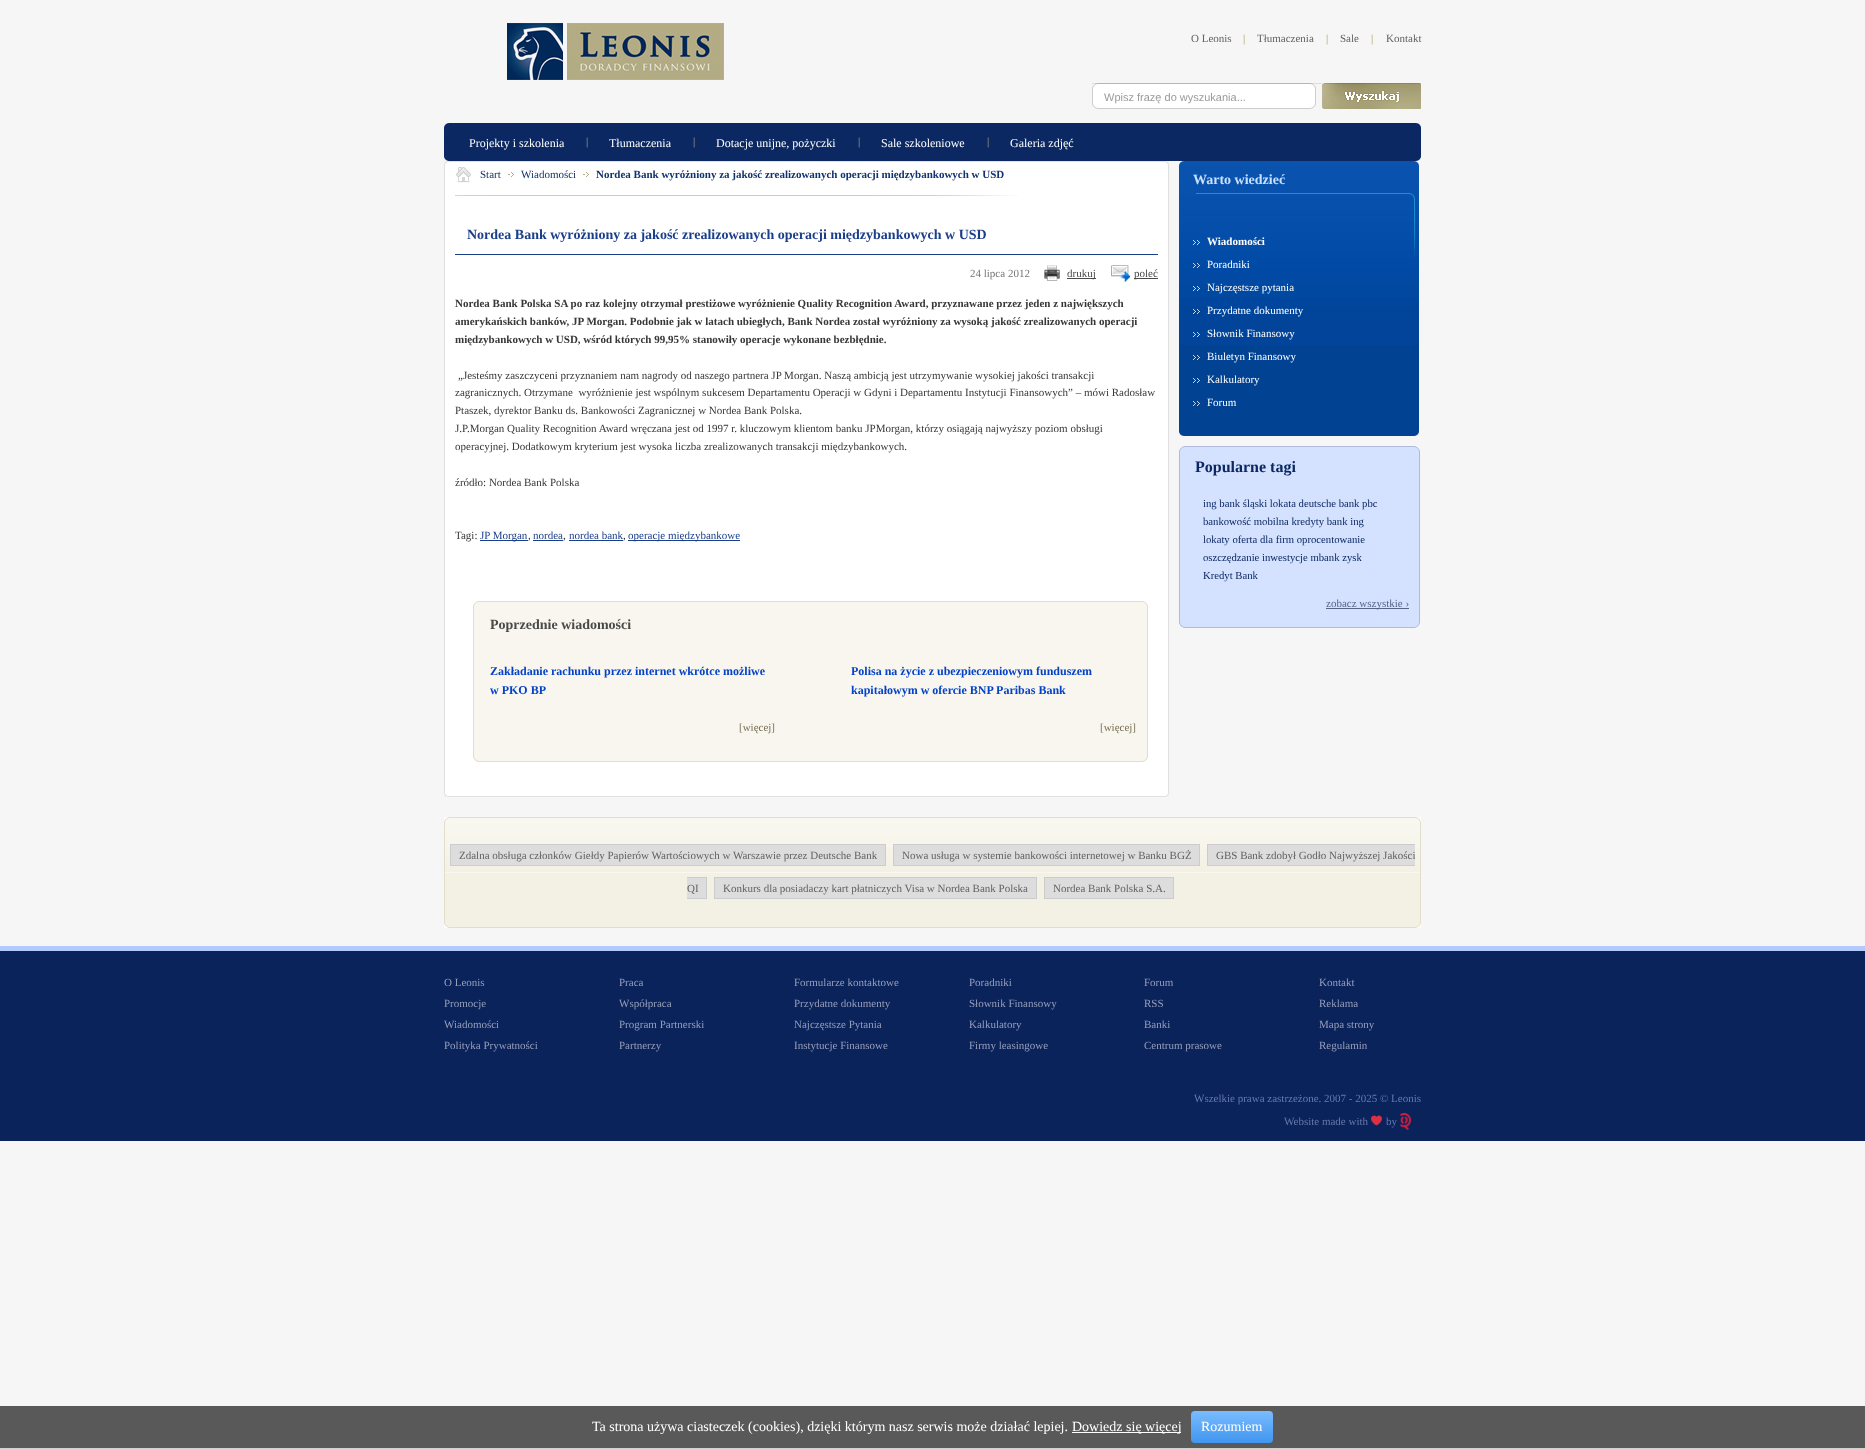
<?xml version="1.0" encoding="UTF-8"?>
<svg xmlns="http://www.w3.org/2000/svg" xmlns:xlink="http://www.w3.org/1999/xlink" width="1865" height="1449">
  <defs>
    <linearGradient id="g1" gradientUnits="userSpaceOnUse" x1="1232" y1="1411" x2="1232" y2="1443"><stop offset="0" stop-color="#7abcff" /><stop offset="0.44" stop-color="#60abf8" /><stop offset="1" stop-color="#4096ee" /></linearGradient>
  </defs>
  <rect width="100%" height="100%" fill="#f6f6f6" />
  <image x="507" y="23" width="217" height="57" xlink:href="image1.png" />
  <image x="1092" y="83" width="224" height="26" xlink:href="image2.png" />
  <rect x="1092" y="83" width="230" height="1" fill="#000000" fill-opacity="0.1" />
  <image x="1322" y="83" width="99" height="26" xlink:href="image3.png" />
  <image x="444" y="123" width="977" height="38" xlink:href="image4.png" />
  <rect x="445" y="162" width="723" height="634" fill="#ffffff" />
  <rect x="444" y="161" width="725" height="1" fill="#e0e0e0" />
  <image x="444" y="161" width="4" height="5" xlink:href="image5.png" />
  <image x="1165" y="161" width="4" height="5" xlink:href="image6.png" />
  <rect x="1168" y="166" width="1" height="626" fill="#e0e0e0" />
  <rect x="444" y="166" width="1" height="626" fill="#e0e0e0" />
  <image x="456" y="167" width="15" height="16" xlink:href="image7.png" />
  <image x="508" y="172" width="6" height="5" xlink:href="image8.png" />
  <image x="583" y="172" width="6" height="5" xlink:href="image8.png" />
  <image x="455" y="195" width="563" height="1" xlink:href="image9.png" />
  <rect x="455" y="254" width="703" height="1" fill="#1b3e8a" />
  <image x="1044" y="265" width="16" height="16" xlink:href="image10.png" />
  <rect x="1067" y="278" width="29" height="1" fill="#494949" />
  <image x="1111" y="265" width="19" height="17" xlink:href="image11.png" />
  <rect x="1134" y="278" width="24" height="1" fill="#494949" />
  <rect x="480" y="540" width="48" height="1" fill="#1b3e8a" />
  <rect x="533" y="540" width="30" height="1" fill="#1b3e8a" />
  <rect x="569" y="540" width="54" height="1" fill="#1b3e8a" />
  <rect x="628" y="540" width="112" height="1" fill="#1b3e8a" />
  <rect x="474" y="602" width="673" height="159" fill="#f8f6ee" />
  <rect x="473" y="601" width="675" height="1" fill="#e1decb" />
  <image x="473" y="601" width="5" height="5" xlink:href="image12.png" />
  <image x="1143" y="601" width="5" height="5" xlink:href="image13.png" />
  <rect x="1147" y="606" width="1" height="151" fill="#e1dfca" />
  <rect x="473" y="606" width="1" height="151" fill="#e1dfca" />
  <rect x="473" y="761" width="675" height="1" fill="#e1decb" />
  <image x="473" y="757" width="5" height="5" xlink:href="image14.png" />
  <image x="1143" y="757" width="5" height="5" xlink:href="image15.png" />
  <rect x="444" y="796" width="725" height="1" fill="#e0e0e0" />
  <image x="444" y="792" width="4" height="5" xlink:href="image16.png" />
  <image x="1165" y="792" width="4" height="5" xlink:href="image17.png" />
  <rect x="1179" y="345" width="240" height="91" fill="#014293" />
  <image x="1179" y="161" width="240" height="184" xlink:href="image18.png" />
  <image x="1179" y="161" width="5" height="5" xlink:href="image19.png" />
  <image x="1414" y="161" width="5" height="5" xlink:href="image20.png" />
  <image x="1196" y="193" width="219" height="65" xlink:href="image21.png" />
  <image x="1193" y="240" width="7" height="5" xlink:href="image22.png" />
  <image x="1193" y="263" width="7" height="5" xlink:href="image23.png" />
  <image x="1193" y="286" width="7" height="5" xlink:href="image24.png" />
  <image x="1193" y="309" width="7" height="5" xlink:href="image25.png" />
  <image x="1193" y="332" width="7" height="5" xlink:href="image26.png" />
  <image x="1193" y="355" width="7" height="5" xlink:href="image27.png" />
  <image x="1193" y="378" width="7" height="5" xlink:href="image27.png" />
  <image x="1193" y="401" width="7" height="5" xlink:href="image27.png" />
  <image x="1179" y="431" width="5" height="5" xlink:href="image28.png" />
  <image x="1414" y="431" width="5" height="5" xlink:href="image29.png" />
  <rect x="1180" y="447" width="239" height="180" fill="#d4e2ff" />
  <rect x="1179" y="446" width="241" height="1" fill="#aebcd9" />
  <image x="1179" y="446" width="5" height="5" xlink:href="image30.png" />
  <image x="1415" y="446" width="5" height="5" xlink:href="image31.png" />
  <rect x="1419" y="451" width="1" height="172" fill="#adbcd9" />
  <rect x="1179" y="451" width="1" height="172" fill="#adbcd9" />
  <rect x="1326" y="608" width="83" height="1" fill="#576687" />
  <rect x="1179" y="627" width="241" height="1" fill="#aebcd9" />
  <image x="1179" y="623" width="5" height="5" xlink:href="image32.png" />
  <image x="1415" y="623" width="5" height="5" xlink:href="image33.png" />
  <rect x="445" y="873" width="975" height="54" fill="#f3f1e4" />
  <image x="445" y="818" width="975" height="55" xlink:href="image34.png" />
  <rect x="444" y="817" width="977" height="1" fill="#e1decb" />
  <image x="444" y="817" width="5" height="5" xlink:href="image35.png" />
  <image x="1416" y="817" width="5" height="5" xlink:href="image36.png" />
  <rect x="1420" y="822" width="1" height="101" fill="#e1dfca" />
  <rect x="444" y="822" width="1" height="101" fill="#e1dfca" />
  <rect x="450.5" y="844.5" width="435" height="21" fill="#dddddd" stroke="#cccccc" />
  <rect x="893.5" y="844.5" width="306" height="21" fill="#dddddd" stroke="#cccccc" />
  <rect x="1208" y="845" width="207" height="20" fill="#dddddd" />
  <rect x="1207" y="844" width="208" height="1" fill="#cccccc" />
  <rect x="1207" y="865" width="208" height="1" fill="#cccccc" />
  <rect x="1207" y="844" width="1" height="22" fill="#cccccc" />
  <rect x="687" y="878" width="19" height="20" fill="#dddddd" />
  <rect x="687" y="877" width="20" height="1" fill="#cccccc" />
  <rect x="706" y="877" width="1" height="22" fill="#cccccc" />
  <rect x="687" y="898" width="20" height="1" fill="#cccccc" />
  <rect x="714.5" y="877.5" width="322" height="21" fill="#dddddd" stroke="#cccccc" />
  <rect x="1044.5" y="877.5" width="129" height="21" fill="#dddddd" stroke="#cccccc" />
  <rect x="444" y="927" width="977" height="1" fill="#e1decb" />
  <image x="444" y="923" width="5" height="5" xlink:href="image37.png" />
  <image x="1416" y="923" width="5" height="5" xlink:href="image38.png" />
  <rect y="951" width="1865" height="190" fill="#0a235b" />
  <rect y="946" width="1865" height="5" fill="#b3cafe" />
  <image x="1371" y="1115" width="11" height="11" xlink:href="image39.png" />
  <image x="1400" y="1113" width="11" height="17" xlink:href="image40.png" />
  <rect y="1406" width="1865" height="42" fill="#595959" />
  <rect y="1448" width="1865" height="1" fill="#d3d0d0" />
  <rect x="1072" y="1432" width="109" height="1" fill="#ffffff" />
  <rect x="1191" y="1411" width="82" height="32" rx="4" fill="url(#g1)" />
  <text x="1191" y="42" style="font-family: Liberation Serif; font-size: 11px; fill: #626262">O Leonis</text>
  <text x="1243" y="42" style="font-family: Liberation Serif; font-size: 11px; fill: #a79f61">|</text>
  <text x="1257" y="42" style="font-family: Liberation Serif; font-size: 11px; fill: #626262">Tłumaczenia</text>
  <text x="1326" y="42" style="font-family: Liberation Serif; font-size: 11px; fill: #a79f61">|</text>
  <text x="1340" y="42" style="font-family: Liberation Serif; font-size: 11px; fill: #626262">Sale</text>
  <text x="1371" y="42" style="font-family: Liberation Serif; font-size: 11px; fill: #a79f61">|</text>
  <text x="1386" y="42" style="font-family: Liberation Serif; font-size: 11px; fill: #626262">Kontakt</text>
  <text x="1104" y="101" style="font-family: Liberation Sans; font-size: 11px; fill: #9a9a9a">Wpisz frazę do wyszukania...</text>
  <text x="469" y="147" style="font-family: Liberation Serif; font-size: 12px; fill: #ffffff">Projekty i szkolenia</text>
  <text x="586" y="145" style="font-family: Liberation Serif; font-size: 11px; fill: #b4ab84">|</text>
  <text x="609" y="147" style="font-family: Liberation Serif; font-size: 12px; fill: #ffffff">Tłumaczenia</text>
  <text x="693" y="145" style="font-family: Liberation Serif; font-size: 11px; fill: #b4ab84">|</text>
  <text x="716" y="147" style="font-family: Liberation Serif; font-size: 12px; fill: #ffffff">Dotacje unijne, pożyczki</text>
  <text x="858" y="145" style="font-family: Liberation Serif; font-size: 11px; fill: #b4ab84">|</text>
  <text x="881" y="147" style="font-family: Liberation Serif; font-size: 12px; fill: #ffffff">Sale szkoleniowe</text>
  <text x="987" y="145" style="font-family: Liberation Serif; font-size: 11px; fill: #b4ab84">|</text>
  <text x="1010" y="147" style="font-family: Liberation Serif; font-size: 12px; fill: #ffffff">Galeria zdjęć</text>
  <text x="480" y="178" style="font-family: Liberation Serif; font-size: 11px; fill: #12326f">Start</text>
  <text x="521" y="178" style="font-family: Liberation Serif; font-size: 11px; fill: #12326f">Wiadomości</text>
  <text x="596" y="178" style="font-family: Liberation Serif; font-size: 11px; font-weight: bold; fill: #12326f">Nordea Bank wyróżniony za jakość zrealizowanych operacji międzybankowych w USD</text>
  <text x="467" y="239" style="font-family: Liberation Serif; font-size: 14px; font-weight: bold; fill: #1b3e8a">Nordea Bank wyróżniony za jakość zrealizowanych operacji międzybankowych w USD</text>
  <text x="970" y="277" style="font-family: Liberation Serif; font-size: 11px; fill: #767676">24 lipca 2012</text>
  <text x="1067" y="277" style="font-family: Liberation Serif; font-size: 11px; fill: #494949">drukuj</text>
  <text x="1134" y="277" style="font-family: Liberation Serif; font-size: 11px; fill: #494949">poleć</text>
  <text x="455" y="307" style="font-family: Liberation Serif; font-size: 11px; font-weight: bold; fill: #373737">Nordea Bank Polska SA po raz kolejny otrzymał prestiżowe wyróżnienie Quality Recognition Award, przyznawane przez jeden z największych</text>
  <text x="455" y="325" style="font-family: Liberation Serif; font-size: 11px; font-weight: bold; fill: #373737">amerykańskich banków, JP Morgan. Podobnie jak w latach ubiegłych, Bank Nordea został wyróżniony za wysoką jakość zrealizowanych operacji</text>
  <text x="455" y="343" style="font-family: Liberation Serif; font-size: 11px; font-weight: bold; fill: #373737">międzybankowych w USD, wśród których 99,95% stanowiły operacje wykonane bezbłędnie.</text>
  <text x="458" y="379" style="font-family: Liberation Serif; font-size: 11px; fill: #373737">„Jesteśmy zaszczyceni przyznaniem nam nagrody od naszego partnera JP Morgan. Naszą ambicją jest utrzymywanie wysokiej jakości transakcji</text>
  <text x="455" y="396" style="font-family: Liberation Serif; font-size: 11px; fill: #373737" xml:space="preserve">zagranicznych. Otrzymane  wyróżnienie jest wspólnym sukcesem Departamentu Operacji w Gdyni i Departamentu Instytucji Finansowych” – mówi Radosław</text>
  <text x="455" y="414" style="font-family: Liberation Serif; font-size: 11px; fill: #373737">Ptaszek, dyrektor Banku ds. Bankowości Zagranicznej w Nordea Bank Polska.</text>
  <text x="455" y="432" style="font-family: Liberation Serif; font-size: 11px; fill: #373737">J.P.Morgan Quality Recognition Award wręczana jest od 1997 r. kluczowym klientom banku JPMorgan, którzy osiągają najwyższy poziom obsługi</text>
  <text x="455" y="450" style="font-family: Liberation Serif; font-size: 11px; fill: #373737">operacyjnej. Dodatkowym kryterium jest wysoka liczba zrealizowanych transakcji międzybankowych.</text>
  <text x="455" y="486" style="font-family: Liberation Serif; font-size: 11px; fill: #373737">źródło: Nordea Bank Polska</text>
  <text x="455" y="539" style="font-family: Liberation Serif; font-size: 11px; fill: #373737">Tagi:</text>
  <text x="480" y="539" style="font-family: Liberation Serif; font-size: 11px; fill: #1b3e8a">JP Morgan</text>
  <text x="528" y="539" style="font-family: Liberation Serif; font-size: 11px; fill: #373737">,</text>
  <text x="533" y="539" style="font-family: Liberation Serif; font-size: 11px; fill: #1b3e8a">nordea</text>
  <text x="563" y="539" style="font-family: Liberation Serif; font-size: 11px; fill: #373737">,</text>
  <text x="569" y="539" style="font-family: Liberation Serif; font-size: 11px; fill: #1b3e8a">nordea bank</text>
  <text x="623" y="539" style="font-family: Liberation Serif; font-size: 11px; fill: #373737">,</text>
  <text x="628" y="539" style="font-family: Liberation Serif; font-size: 11px; fill: #1b3e8a">operacje międzybankowe</text>
  <text x="490" y="629" style="font-family: Liberation Serif; font-size: 14px; font-weight: bold; fill: #494949">Poprzednie wiadomości</text>
  <text x="490" y="675" style="font-family: Liberation Serif; font-size: 12px; font-weight: bold; fill: #0442c7">Zakładanie rachunku przez internet wkrótce możliwe</text>
  <text x="490" y="694" style="font-family: Liberation Serif; font-size: 12px; font-weight: bold; fill: #0442c7">w PKO BP</text>
  <text x="739" y="731" style="font-family: Liberation Serif; font-size: 11px; fill: #777053">[więcej]</text>
  <text x="851" y="675" style="font-family: Liberation Serif; font-size: 12px; font-weight: bold; fill: #0442c7">Polisa na życie z ubezpieczeniowym funduszem</text>
  <text x="851" y="694" style="font-family: Liberation Serif; font-size: 12px; font-weight: bold; fill: #0442c7">kapitałowym w ofercie BNP Paribas Bank</text>
  <text x="1100" y="731" style="font-family: Liberation Serif; font-size: 11px; fill: #777053">[więcej]</text>
  <text x="1193" y="184" style="font-family: Liberation Serif; font-size: 14px; font-weight: bold; fill: #c8e1ff">Warto wiedzieć</text>
  <text x="1207" y="245" style="font-family: Liberation Serif; font-size: 11px; font-weight: bold; fill: #ffffff">Wiadomości</text>
  <text x="1207" y="268" style="font-family: Liberation Serif; font-size: 11px; fill: #ffffff">Poradniki</text>
  <text x="1207" y="291" style="font-family: Liberation Serif; font-size: 11px; fill: #ffffff">Najczęstsze pytania</text>
  <text x="1207" y="314" style="font-family: Liberation Serif; font-size: 11px; fill: #ffffff">Przydatne dokumenty</text>
  <text x="1207" y="337" style="font-family: Liberation Serif; font-size: 11px; fill: #ffffff">Słownik Finansowy</text>
  <text x="1207" y="360" style="font-family: Liberation Serif; font-size: 11px; fill: #ffffff">Biuletyn Finansowy</text>
  <text x="1207" y="383" style="font-family: Liberation Serif; font-size: 11px; fill: #ffffff">Kalkulatory</text>
  <text x="1207" y="406" style="font-family: Liberation Serif; font-size: 11px; fill: #ffffff">Forum</text>
  <text x="1195" y="472" style="font-family: Liberation Serif; font-size: 16px; font-weight: bold; fill: #0c2863">Popularne tagi</text>
  <text x="1203" y="507" style="font-family: Liberation Serif; font-size: 10.7px; fill: #0c2863">ing bank śląski lokata deutsche bank pbc</text>
  <text x="1203" y="525" style="font-family: Liberation Serif; font-size: 10.7px; fill: #0c2863">bankowość mobilna kredyty bank ing</text>
  <text x="1203" y="543" style="font-family: Liberation Serif; font-size: 10.7px; fill: #0c2863">lokaty oferta dla firm oprocentowanie</text>
  <text x="1203" y="561" style="font-family: Liberation Serif; font-size: 10.7px; fill: #0c2863">oszczędzanie inwestycje mbank zysk</text>
  <text x="1203" y="579" style="font-family: Liberation Serif; font-size: 10.7px; fill: #0c2863">Kredyt Bank</text>
  <text x="1326" y="607" style="font-family: Liberation Serif; font-size: 11px; fill: #576687">zobacz wszystkie ›</text>
  <text x="459" y="859" style="font-family: Liberation Serif; font-size: 11px; fill: #626262">Zdalna obsługa członków Giełdy Papierów Wartościowych w Warszawie przez Deutsche Bank</text>
  <text x="902" y="859" style="font-family: Liberation Serif; font-size: 11px; fill: #626262">Nowa usługa w systemie bankowości internetowej w Banku BGŻ</text>
  <text x="1216" y="859" style="font-family: Liberation Serif; font-size: 11px; fill: #626262">GBS Bank zdobył Godło Najwyższej Jakości</text>
  <text x="687" y="892" style="font-family: Liberation Serif; font-size: 11px; fill: #626262">QI</text>
  <text x="723" y="892" style="font-family: Liberation Serif; font-size: 11px; fill: #626262">Konkurs dla posiadaczy kart płatniczych Visa w Nordea Bank Polska</text>
  <text x="1053" y="892" style="font-family: Liberation Serif; font-size: 11px; fill: #626262">Nordea Bank Polska S.A.</text>
  <text x="444" y="986" style="font-family: Liberation Serif; font-size: 11px; fill: #979eba">O Leonis</text>
  <text x="444" y="1007" style="font-family: Liberation Serif; font-size: 11px; fill: #979eba">Promocje</text>
  <text x="444" y="1028" style="font-family: Liberation Serif; font-size: 11px; fill: #979eba">Wiadomości</text>
  <text x="444" y="1049" style="font-family: Liberation Serif; font-size: 11px; fill: #979eba">Polityka Prywatności</text>
  <text x="619" y="986" style="font-family: Liberation Serif; font-size: 11px; fill: #979eba">Praca</text>
  <text x="619" y="1007" style="font-family: Liberation Serif; font-size: 11px; fill: #979eba">Współpraca</text>
  <text x="619" y="1028" style="font-family: Liberation Serif; font-size: 11px; fill: #979eba">Program Partnerski</text>
  <text x="619" y="1049" style="font-family: Liberation Serif; font-size: 11px; fill: #979eba">Partnerzy</text>
  <text x="794" y="986" style="font-family: Liberation Serif; font-size: 11px; fill: #979eba">Formularze kontaktowe</text>
  <text x="794" y="1007" style="font-family: Liberation Serif; font-size: 11px; fill: #979eba">Przydatne dokumenty</text>
  <text x="794" y="1028" style="font-family: Liberation Serif; font-size: 11px; fill: #979eba">Najczęstsze Pytania</text>
  <text x="794" y="1049" style="font-family: Liberation Serif; font-size: 11px; fill: #979eba">Instytucje Finansowe</text>
  <text x="969" y="986" style="font-family: Liberation Serif; font-size: 11px; fill: #979eba">Poradniki</text>
  <text x="969" y="1007" style="font-family: Liberation Serif; font-size: 11px; fill: #979eba">Słownik Finansowy</text>
  <text x="969" y="1028" style="font-family: Liberation Serif; font-size: 11px; fill: #979eba">Kalkulatory</text>
  <text x="969" y="1049" style="font-family: Liberation Serif; font-size: 11px; fill: #979eba">Firmy leasingowe</text>
  <text x="1144" y="986" style="font-family: Liberation Serif; font-size: 11px; fill: #979eba">Forum</text>
  <text x="1144" y="1007" style="font-family: Liberation Serif; font-size: 11px; fill: #979eba">RSS</text>
  <text x="1144" y="1028" style="font-family: Liberation Serif; font-size: 11px; fill: #979eba">Banki</text>
  <text x="1144" y="1049" style="font-family: Liberation Serif; font-size: 11px; fill: #979eba">Centrum prasowe</text>
  <text x="1319" y="986" style="font-family: Liberation Serif; font-size: 11px; fill: #979eba">Kontakt</text>
  <text x="1319" y="1007" style="font-family: Liberation Serif; font-size: 11px; fill: #979eba">Reklama</text>
  <text x="1319" y="1028" style="font-family: Liberation Serif; font-size: 11px; fill: #979eba">Mapa strony</text>
  <text x="1319" y="1049" style="font-family: Liberation Serif; font-size: 11px; fill: #979eba">Regulamin</text>
  <text x="1194" y="1102" style="font-family: Liberation Serif; font-size: 11px; fill: #6779ab">Wszelkie prawa zastrzeżone. 2007 - 2025 © Leonis</text>
  <text x="1284" y="1125" style="font-family: Liberation Serif; font-size: 11px; fill: #6779ab">Website made with</text>
  <text x="1386" y="1125" style="font-family: Liberation Serif; font-size: 11px; fill: #6779ab">by</text>
  <text x="592" y="1431" style="font-family: Liberation Serif; font-size: 14px; fill: #ffffff">Ta strona używa ciasteczek (cookies), dzięki którym nasz serwis może działać lepiej.</text>
  <text x="1072" y="1431" style="font-family: Liberation Serif; font-size: 14px; fill: #ffffff">Dowiedz się więcej</text>
  <text x="1201" y="1431" style="font-family: Liberation Serif; font-size: 14px; fill: #ffffff">Rozumiem</text>
</svg>
